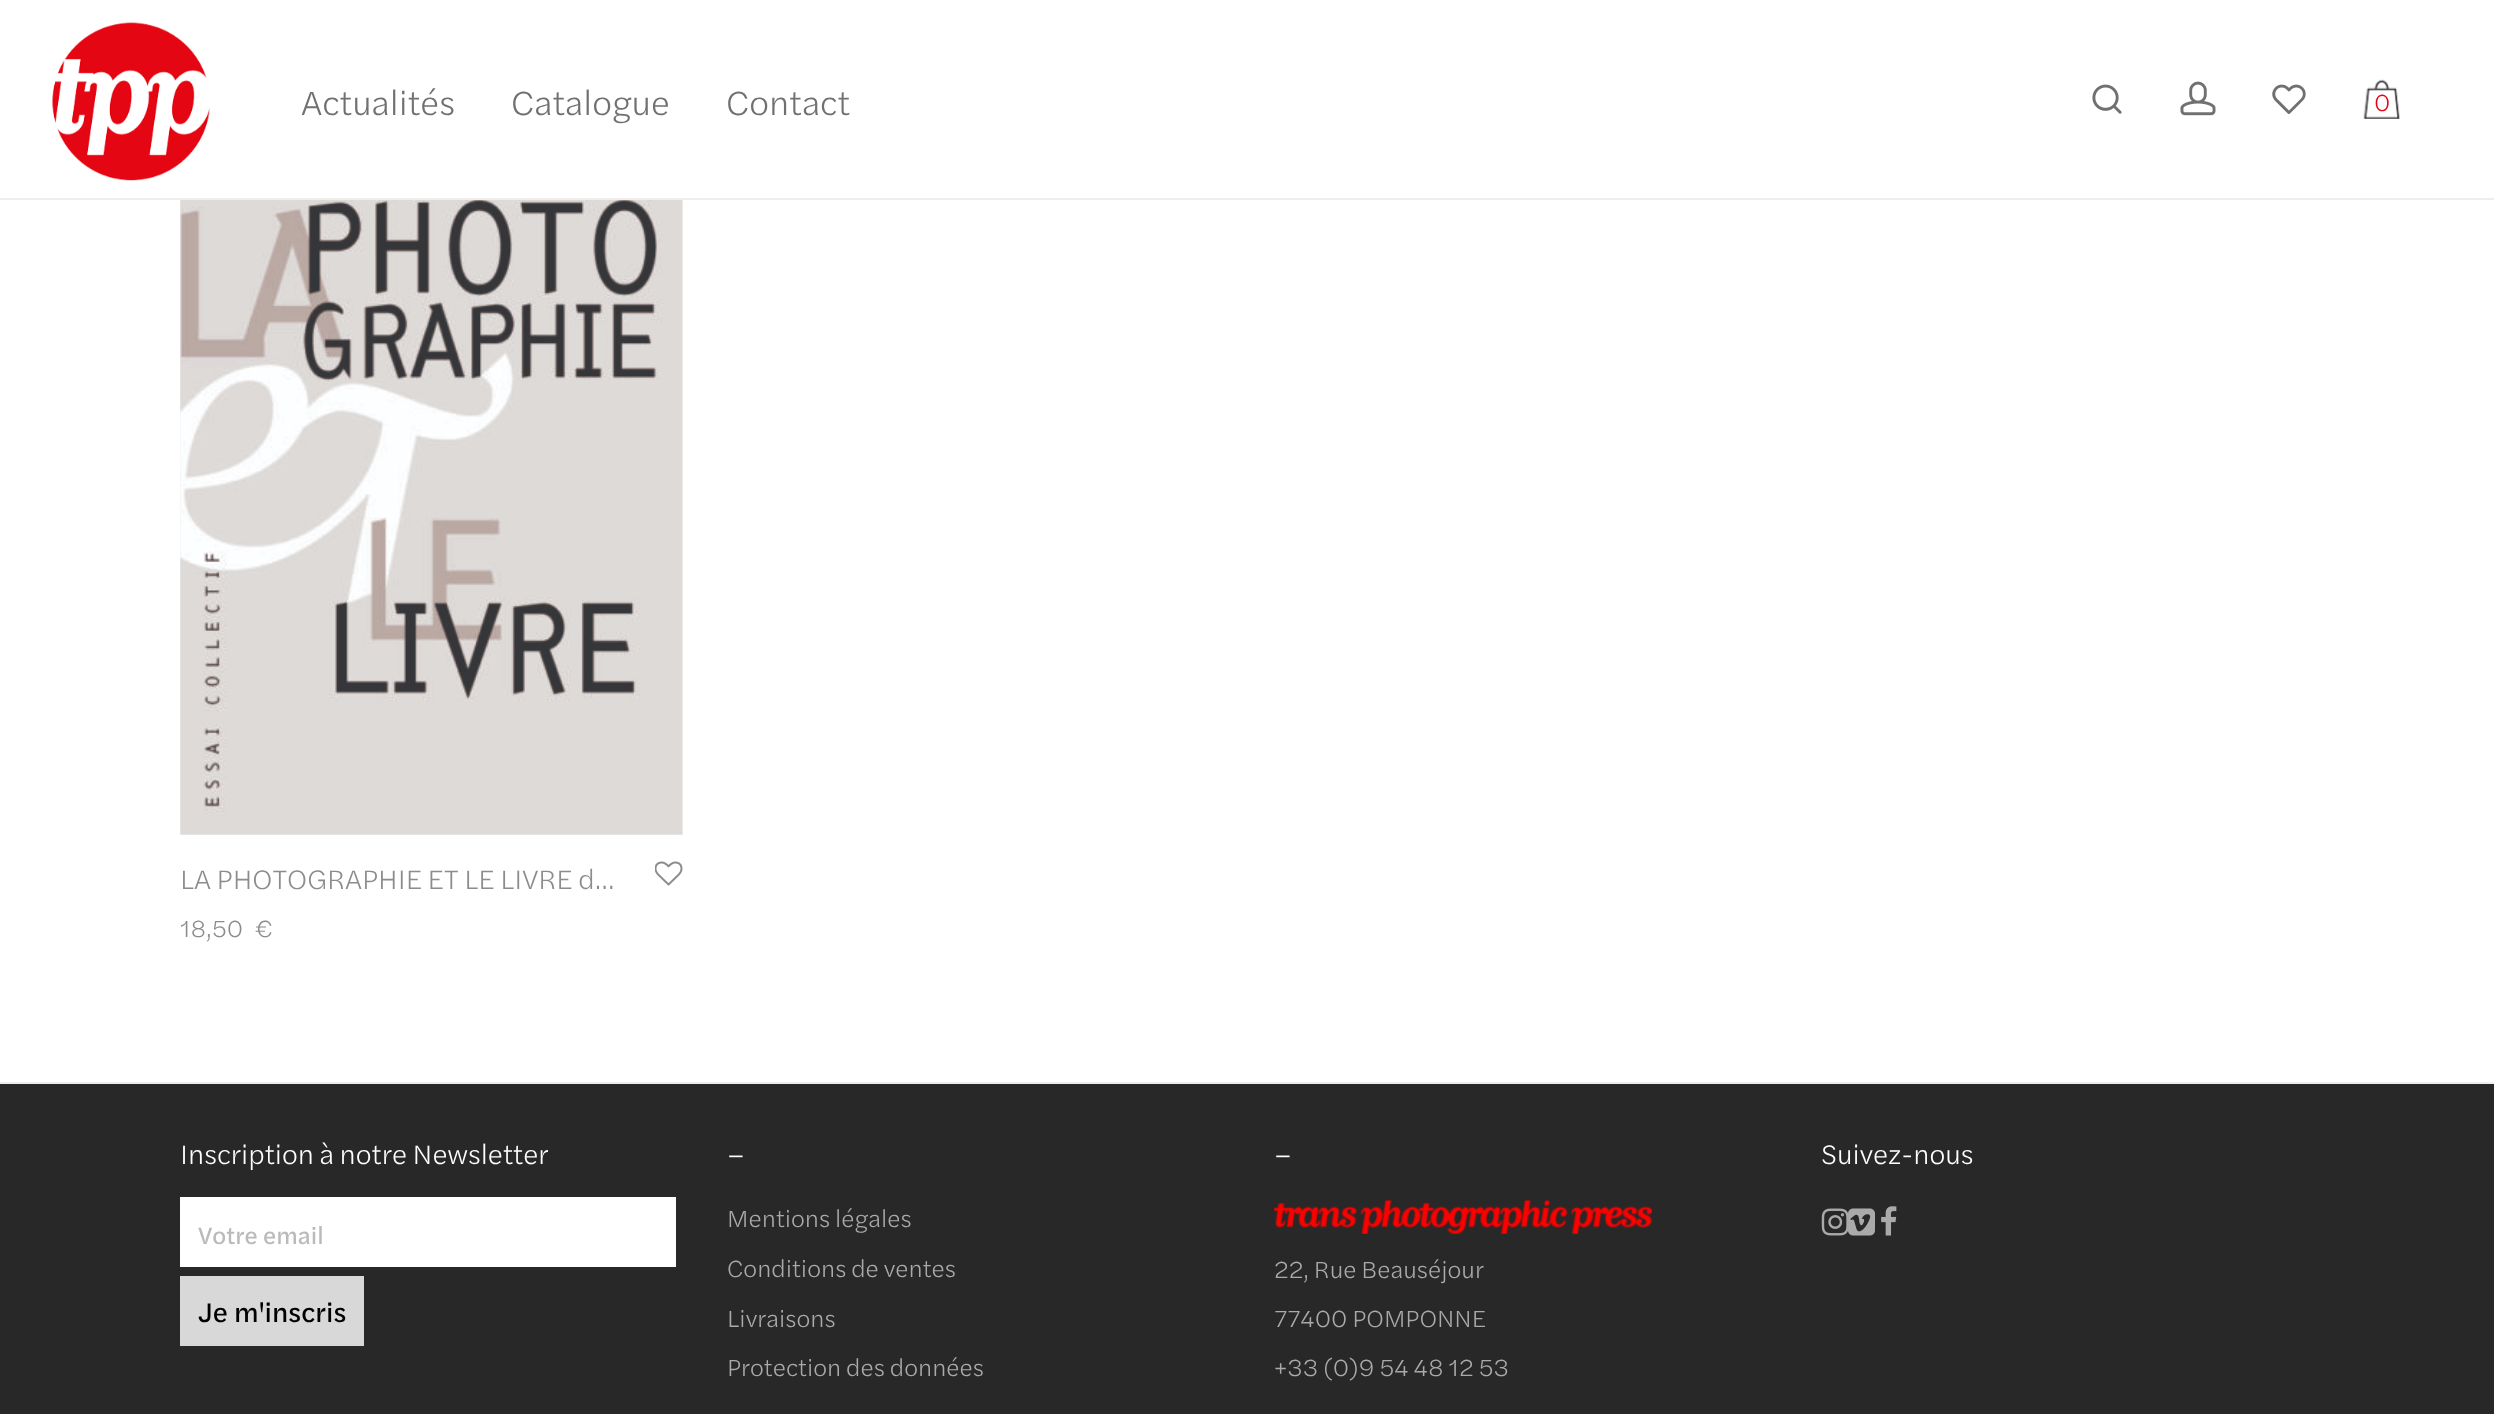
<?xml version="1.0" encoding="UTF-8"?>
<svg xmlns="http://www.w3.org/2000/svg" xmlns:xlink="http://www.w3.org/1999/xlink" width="2494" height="1414">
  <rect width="100%" height="100%" fill="#ffffff" />
  <rect y="198" width="2494" height="2" fill="#eeeeee" />
  <image x="52" y="22" width="158" height="159" xlink:href="image1.png" />
  <image x="2092" y="84" width="30" height="30" xlink:href="image2.png" />
  <image x="2180" y="81" width="36" height="35" xlink:href="image3.png" />
  <image x="2272" y="84" width="34" height="30" xlink:href="image4.png" />
  <image x="2363" y="79" width="37" height="40" xlink:href="image5.png" />
  <rect x="180" y="200" width="503" height="635" fill="#eeeeee" />
  <image x="180" y="200" width="503" height="635" xlink:href="image6.png" />
  <image x="655" y="861" width="28" height="25" xlink:href="image7.png" />
  <rect y="1084" width="2494" height="330" fill="#282828" />
  <rect y="1082" width="2494" height="2" fill="#eeeeee" />
  <rect x="180" y="1197" width="496" height="70" fill="#ffffff" />
  <rect x="180" y="1276" width="184" height="70" fill="#d8d8d8" />
  <image x="1274" y="1200" width="378" height="34" xlink:href="image8.png" />
  <image x="1821" y="1208" width="28" height="28" xlink:href="image9.png" />
  <image x="1848" y="1208" width="27" height="28" xlink:href="image10.png" />
  <image x="1881" y="1206" width="16" height="30" xlink:href="image11.png" />
  <text x="301" y="115" style="font-family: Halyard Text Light; font-size: 35px; font-weight: 300; fill: #707070">Actualités</text>
  <text x="511" y="115" style="font-family: Halyard Text Light; font-size: 35px; font-weight: 300; fill: #707070">Catalogue</text>
  <text x="726" y="115" style="font-family: Halyard Text Light; font-size: 35px; font-weight: 300; fill: #707070">Contact</text>
  <text x="2374" y="111" style="font-family: Halyard Text Light; font-size: 24.5px; font-weight: 300; fill: #e30613">0</text>
  <text x="180" y="889" style="font-family: Halyard Text Light; font-size: 28px; font-weight: 300; fill: #8c8c8c">LA PHOTOGRAPHIE ET LE LIVRE d…</text>
  <text x="180" y="937" style="font-family: Halyard Text Light; font-size: 24.5px; font-weight: 300; fill: #8c8c8c">18,50</text>
  <text x="255" y="937" style="font-family: Halyard Text Light; font-size: 24.5px; font-weight: 300; fill: #8c8c8c">€</text>
  <text x="180" y="1164" style="font-family: Halyard Text Light; font-size: 28px; font-weight: 300; fill: #ffffff">Inscription à notre Newsletter</text>
  <text x="198" y="1244" style="font-family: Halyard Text; font-size: 24.5px; fill: #bababa">Votre email</text>
  <text x="198" y="1322" style="font-family: Halyard Text; font-size: 28px; fill: #000000">Je m'inscris</text>
  <text x="727" y="1164" style="font-family: Halyard Text Light; font-size: 28px; font-weight: 300; fill: #ffffff">–</text>
  <text x="727" y="1227" style="font-family: Halyard Text Light; font-size: 24.5px; font-weight: 300; fill: #aaaaaa">Mentions légales</text>
  <text x="727" y="1277" style="font-family: Halyard Text Light; font-size: 24.5px; font-weight: 300; fill: #aaaaaa">Conditions de ventes</text>
  <text x="727" y="1327" style="font-family: Halyard Text Light; font-size: 24.5px; font-weight: 300; fill: #aaaaaa">Livraisons</text>
  <text x="727" y="1376" style="font-family: Halyard Text Light; font-size: 24.5px; font-weight: 300; fill: #aaaaaa">Protection des données</text>
  <text x="1274" y="1164" style="font-family: Halyard Text Light; font-size: 28px; font-weight: 300; fill: #ffffff">–</text>
  <text x="1274" y="1278" style="font-family: Halyard Text Light; font-size: 24.5px; font-weight: 300; fill: #aaaaaa">22, Rue Beauséjour</text>
  <text x="1274" y="1327" style="font-family: Halyard Text Light; font-size: 24.5px; font-weight: 300; fill: #aaaaaa">77400 POMPONNE</text>
  <text x="1274" y="1376" style="font-family: Halyard Text Light; font-size: 24.5px; font-weight: 300; fill: #aaaaaa">+33 (0)9 54 48 12 53</text>
  <text x="1821" y="1164" style="font-family: Halyard Text Light; font-size: 28px; font-weight: 300; fill: #ffffff">Suivez-nous</text>
</svg>
